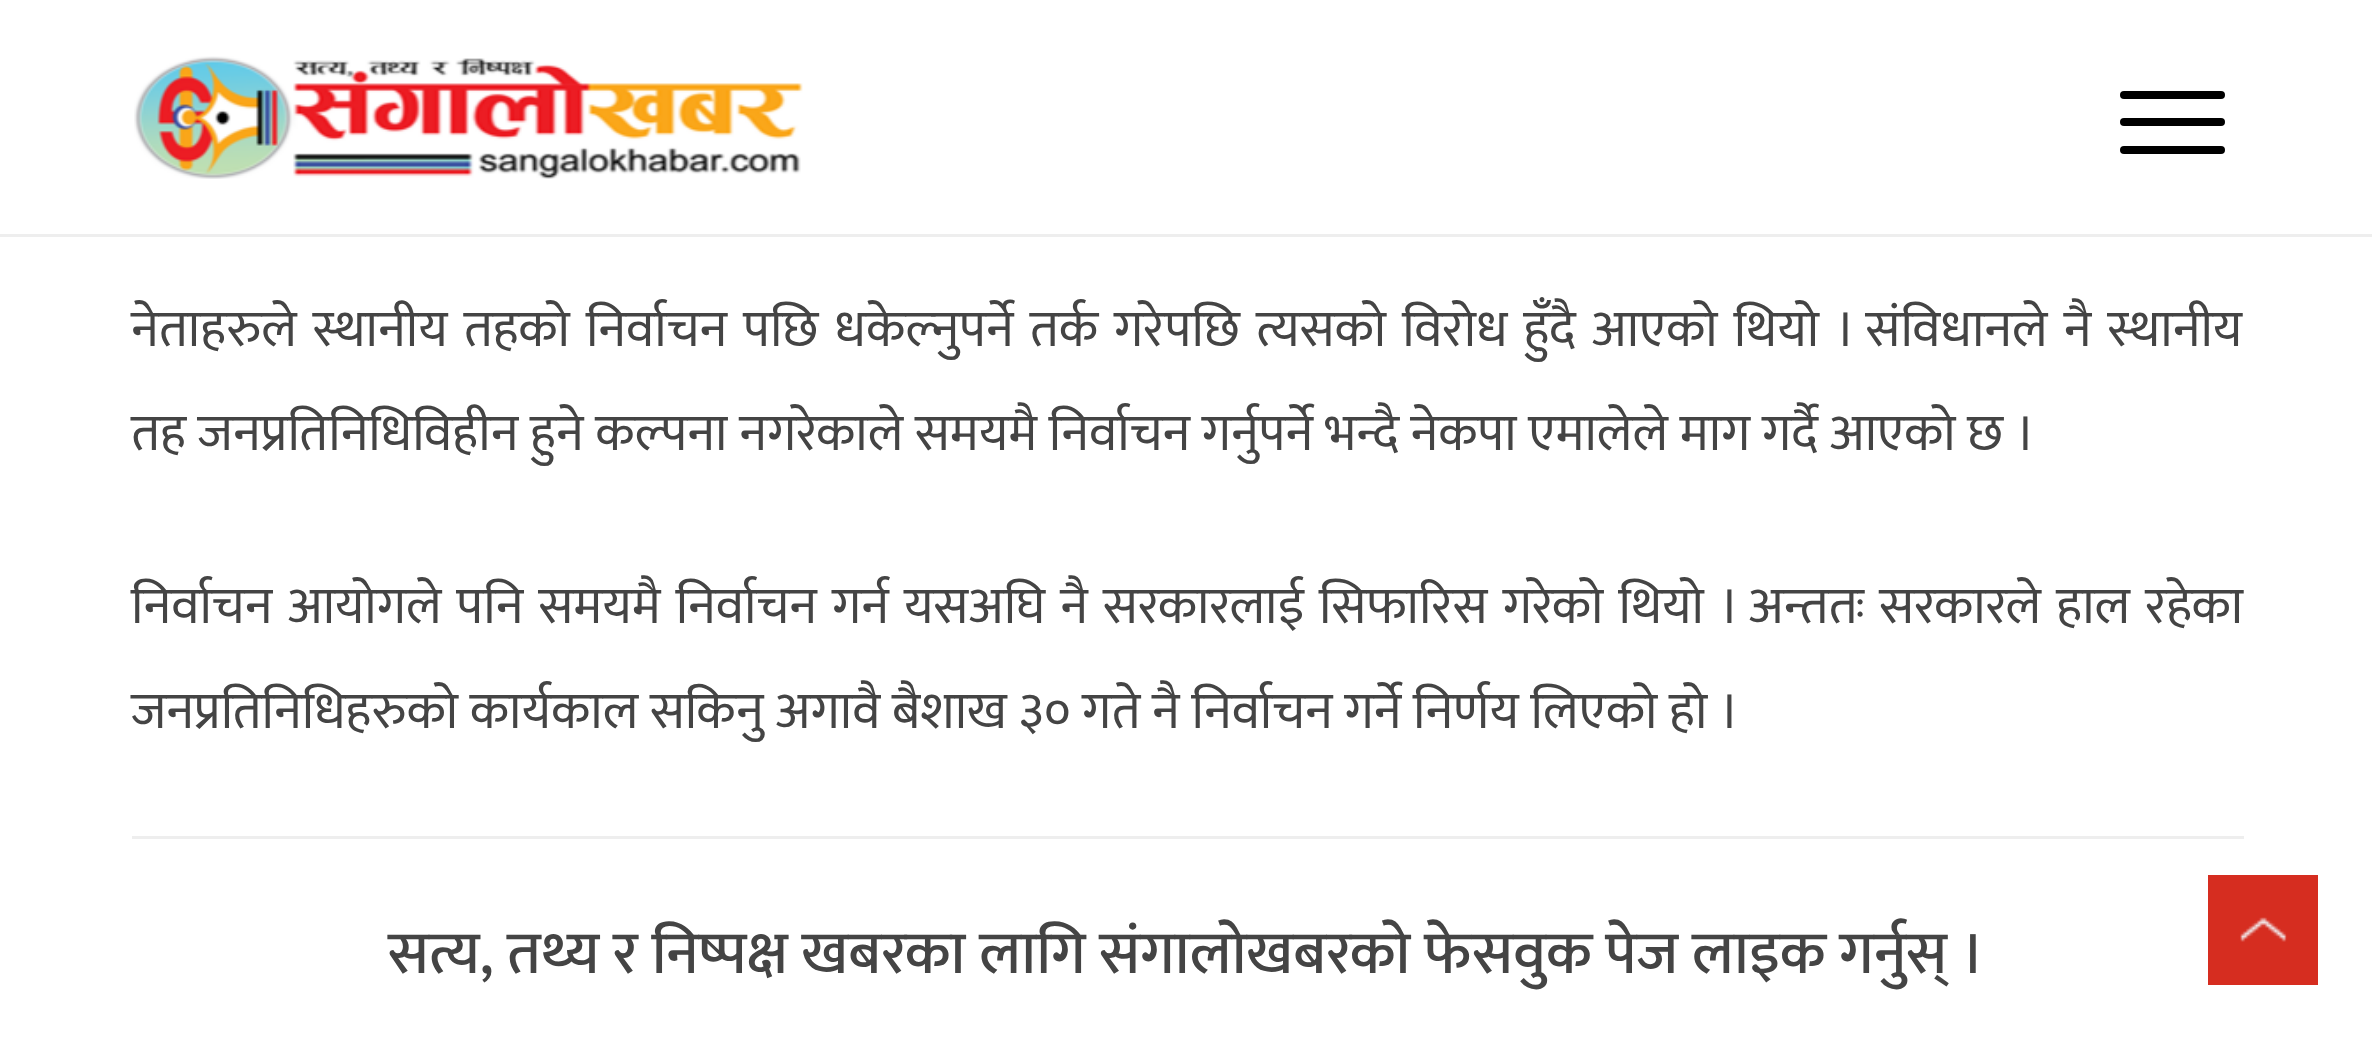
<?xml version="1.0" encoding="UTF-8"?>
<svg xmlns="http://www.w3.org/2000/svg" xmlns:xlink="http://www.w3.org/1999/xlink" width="2372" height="1038">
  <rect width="100%" height="100%" fill="#ffffff" />
  <rect y="234" width="2372" height="3" fill="#eeeeee" />
  <image x="134" y="56" width="669" height="123" xlink:href="image1.png" />
  <rect x="2120" y="91" width="105" height="8" rx="4" fill="#000000" />
  <rect x="2120" y="146" width="105" height="8" rx="4" fill="#000000" />
  <rect x="2120" y="118" width="105" height="8" rx="4" fill="#000000" />
  <rect x="132" y="836" width="2112" height="3" fill="#eeeeee" />
  <rect x="2208" y="875" width="110" height="110" fill="#d62d20" />
  <image x="2240" y="917" width="47" height="25" xlink:href="image2.png" />
  <text x="131" y="346" word-spacing="4.4" style="font-family: Ek Mukta; font-size: 52.25px; fill: #444444">नेताहरुले स्थानीय तहको निर्वाचन पछि धकेल्नुपर्ने तर्क गरेपछि त्यसको विरोध हुँदै आएको थियो । संविधानले नै स्थानीय</text>
  <text x="131" y="450" style="font-family: Ek Mukta; font-size: 52.25px; fill: #444444">तह जनप्रतिनिधिविहीन हुने कल्पना नगरेकाले समयमै निर्वाचन गर्नुपर्ने भन्दै नेकपा एमालेले माग गर्दै आएको छ ।</text>
  <text x="131" y="623" word-spacing="3.4" style="font-family: Ek Mukta; font-size: 52.25px; fill: #444444">निर्वाचन आयोगले पनि समयमै निर्वाचन गर्न यसअघि नै सरकारलाई सिफारिस गरेको थियो । अन्ततः सरकारले हाल रहेका</text>
  <text x="131" y="728" style="font-family: Ek Mukta; font-size: 52.25px; fill: #444444">जनप्रतिनिधिहरुको कार्यकाल सकिनु अगावै बैशाख ३० गते नै निर्वाचन गर्ने निर्णय लिएको हो ।</text>
  <text x="388" y="973" style="font-family: Ek Mukta; font-size: 60.5px; font-weight: 500; fill: #444444">सत्य, तथ्य र निष्पक्ष खबरका लागि संगालोखबरको फेसवुक पेज लाइक गर्नुस् ।</text>
</svg>
